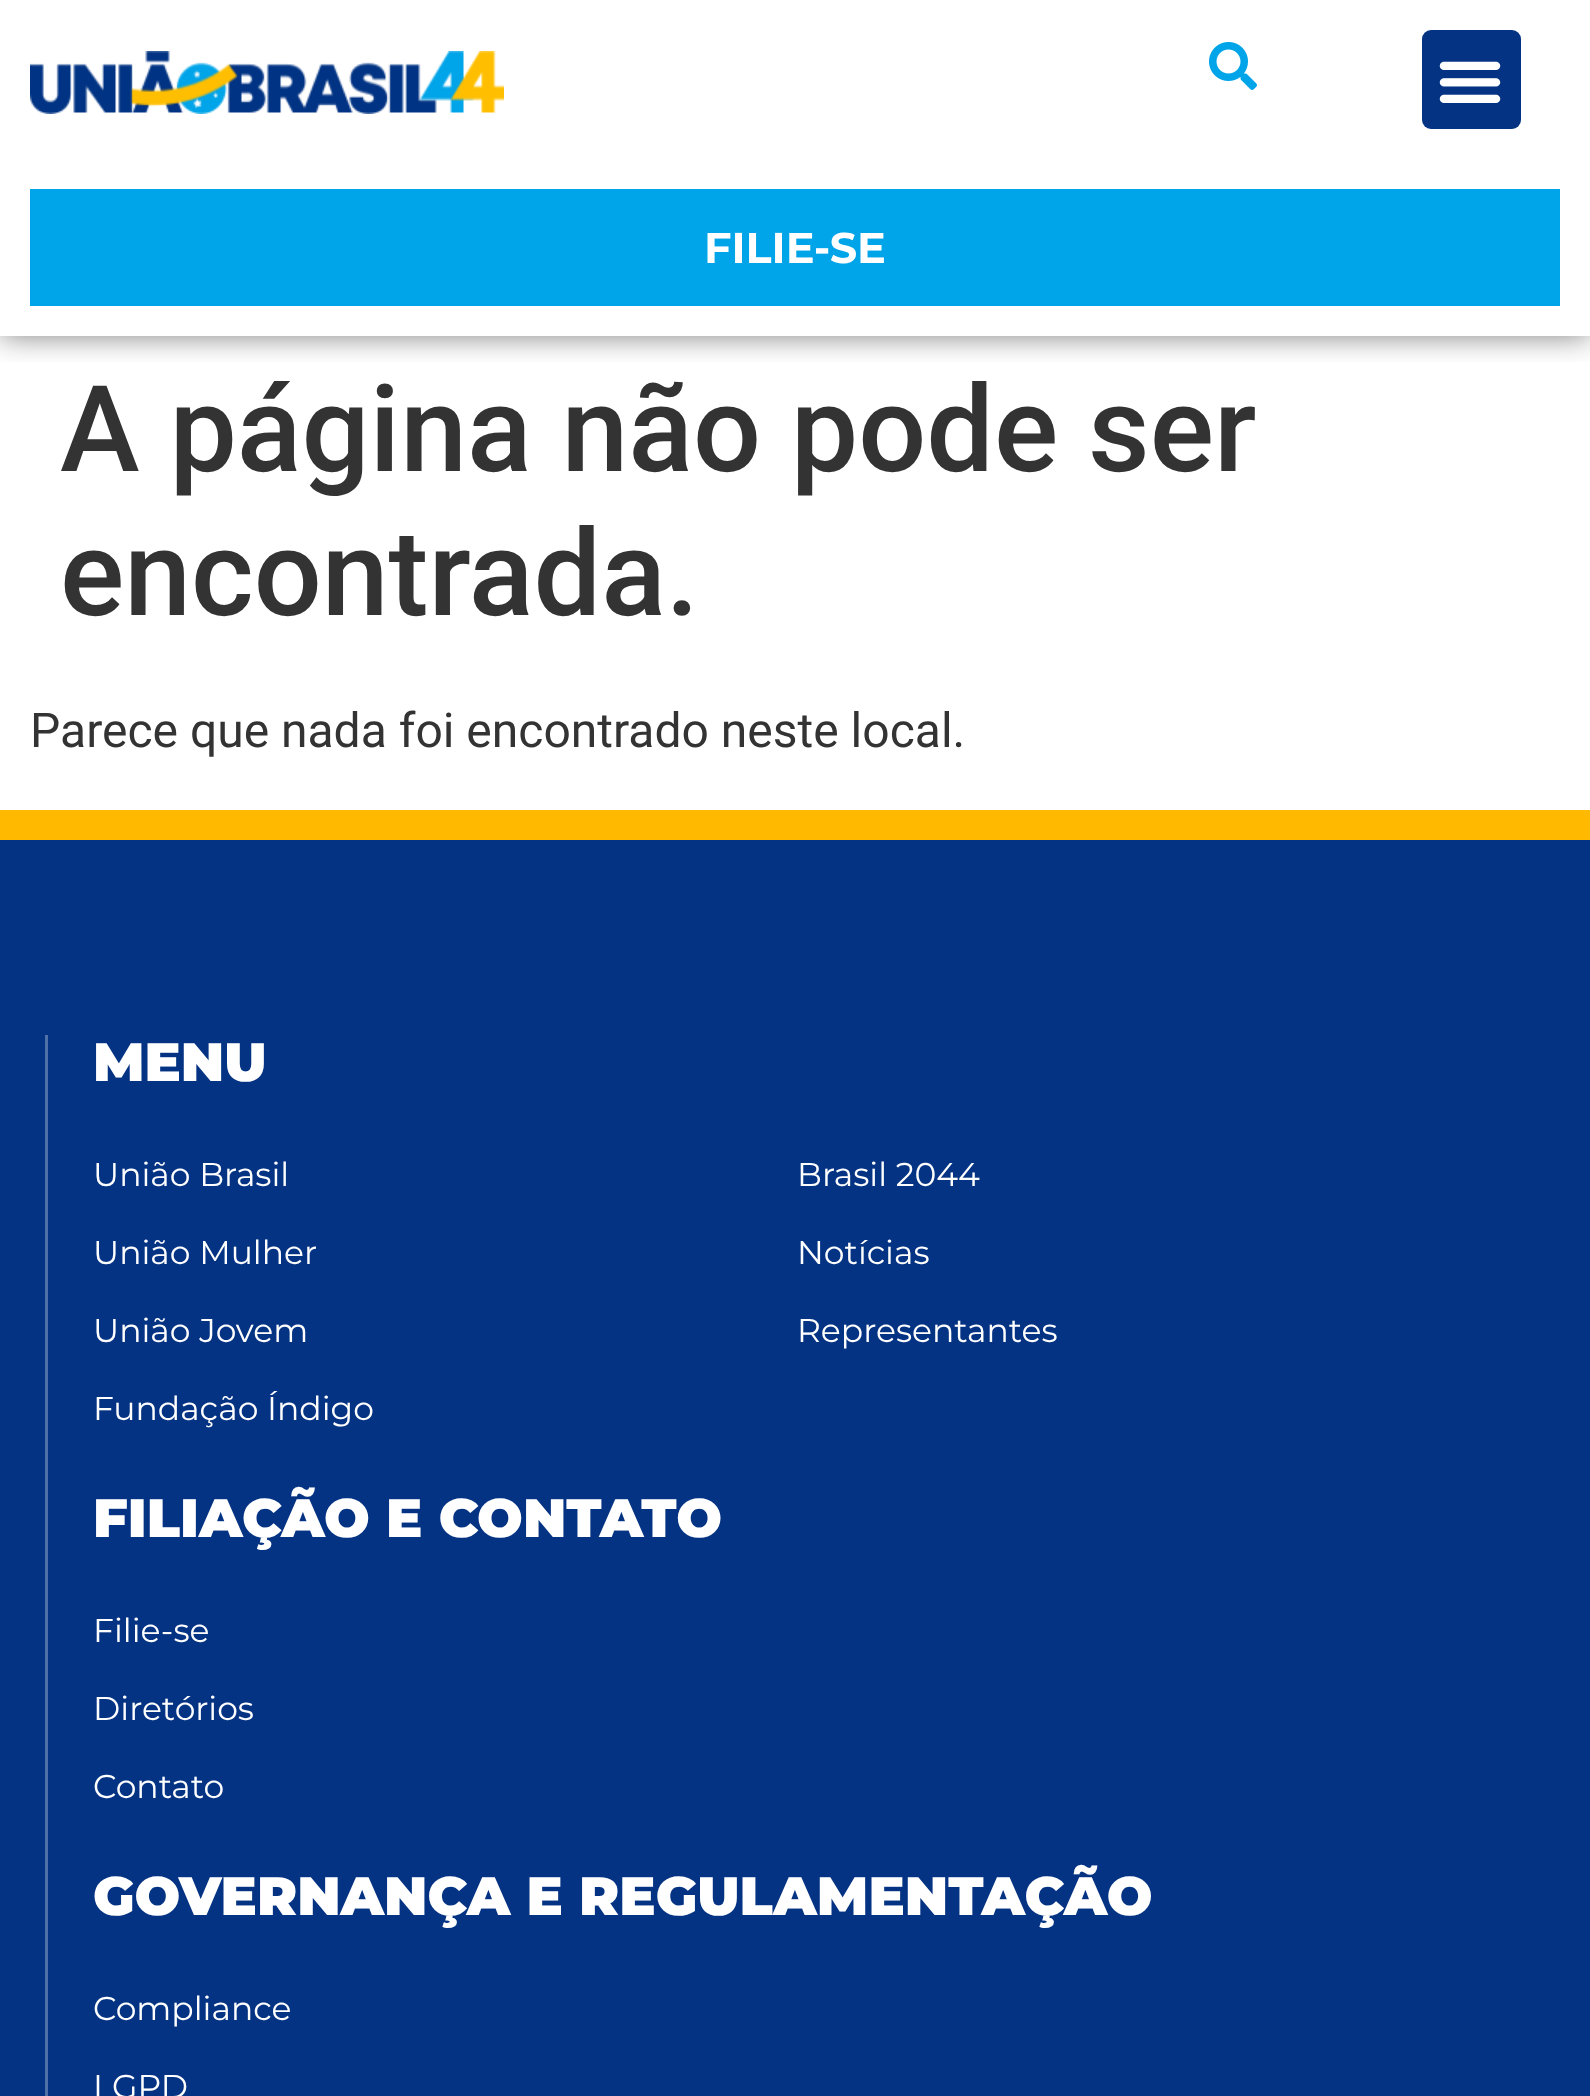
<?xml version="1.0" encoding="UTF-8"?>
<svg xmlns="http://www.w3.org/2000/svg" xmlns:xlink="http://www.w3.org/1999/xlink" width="1590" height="2096">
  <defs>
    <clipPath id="clip1"><rect x="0" y="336" width="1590" height="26" /></clipPath>
  </defs>
  <rect width="100%" height="100%" fill="#ffffff" />
  <g clip-path="url(#clip1)">
    <rect width="1590" height="336" fill="#000000" fill-opacity="0.5" filter="blur(15px)" />
  </g>
  <image x="30" y="51" width="474" height="63" xlink:href="image1.png" />
  <image x="1209" y="42" width="48" height="48" xlink:href="image2.png" />
  <rect x="1422" y="30" width="99" height="99" rx="9" fill="#053383" />
  <image x="1439" y="61" width="62" height="42" xlink:href="image3.png" />
  <rect x="30" y="189" width="1530" height="117" fill="#00a4e8" />
  <rect y="840" width="1590" height="1256" fill="#053383" />
  <rect y="810" width="1590" height="30" fill="#ffba00" />
  <rect x="45" y="1035" width="3" height="1061" fill="#5070a8" />
  <text x="704" y="263" style="font-family: Montserrat; font-size: 43px; font-weight: bold; fill: #ffffff">FILIE-SE</text>
  <text x="60" y="471" style="font-family: Roboto; font-size: 120px; font-weight: 500; fill: #333333">A página não pode ser</text>
  <text x="60" y="615" style="font-family: Roboto; font-size: 120px; font-weight: 500; fill: #333333">encontrada.</text>
  <text x="30" y="747" style="font-family: Roboto; font-size: 48px; fill: #333333">Parece que nada foi encontrado neste local.</text>
  <text x="93" y="1081" style="font-family: Montserrat; font-size: 54px; font-weight: 900; fill: #ffffff">MENU</text>
  <text x="93" y="1186" style="font-family: Montserrat; font-size: 33px; fill: #ffffff">União Brasil</text>
  <text x="93" y="1264" style="font-family: Montserrat; font-size: 33px; fill: #ffffff">União Mulher</text>
  <text x="93" y="1342" style="font-family: Montserrat; font-size: 33px; fill: #ffffff">União Jovem</text>
  <text x="93" y="1420" style="font-family: Montserrat; font-size: 33px; fill: #ffffff">Fundação Índigo</text>
  <text x="797" y="1186" style="font-family: Montserrat; font-size: 33px; fill: #ffffff">Brasil 2044</text>
  <text x="797" y="1264" style="font-family: Montserrat; font-size: 33px; fill: #ffffff">Notícias</text>
  <text x="797" y="1342" style="font-family: Montserrat; font-size: 33px; fill: #ffffff">Representantes</text>
  <text x="93" y="1537" style="font-family: Montserrat; font-size: 54px; font-weight: 900; fill: #ffffff">FILIAÇÃO E CONTATO</text>
  <text x="93" y="1642" style="font-family: Montserrat; font-size: 33px; fill: #ffffff">Filie-se</text>
  <text x="93" y="1720" style="font-family: Montserrat; font-size: 33px; fill: #ffffff">Diretórios</text>
  <text x="93" y="1798" style="font-family: Montserrat; font-size: 33px; fill: #ffffff">Contato</text>
  <text x="93" y="1915" style="font-family: Montserrat; font-size: 54px; font-weight: 900; fill: #ffffff">GOVERNANÇA E REGULAMENTAÇÃO</text>
  <text x="93" y="2020" style="font-family: Montserrat; font-size: 33px; fill: #ffffff">Compliance</text>
  <text x="93" y="2098" style="font-family: Montserrat; font-size: 33px; fill: #ffffff">LGPD</text>
</svg>
